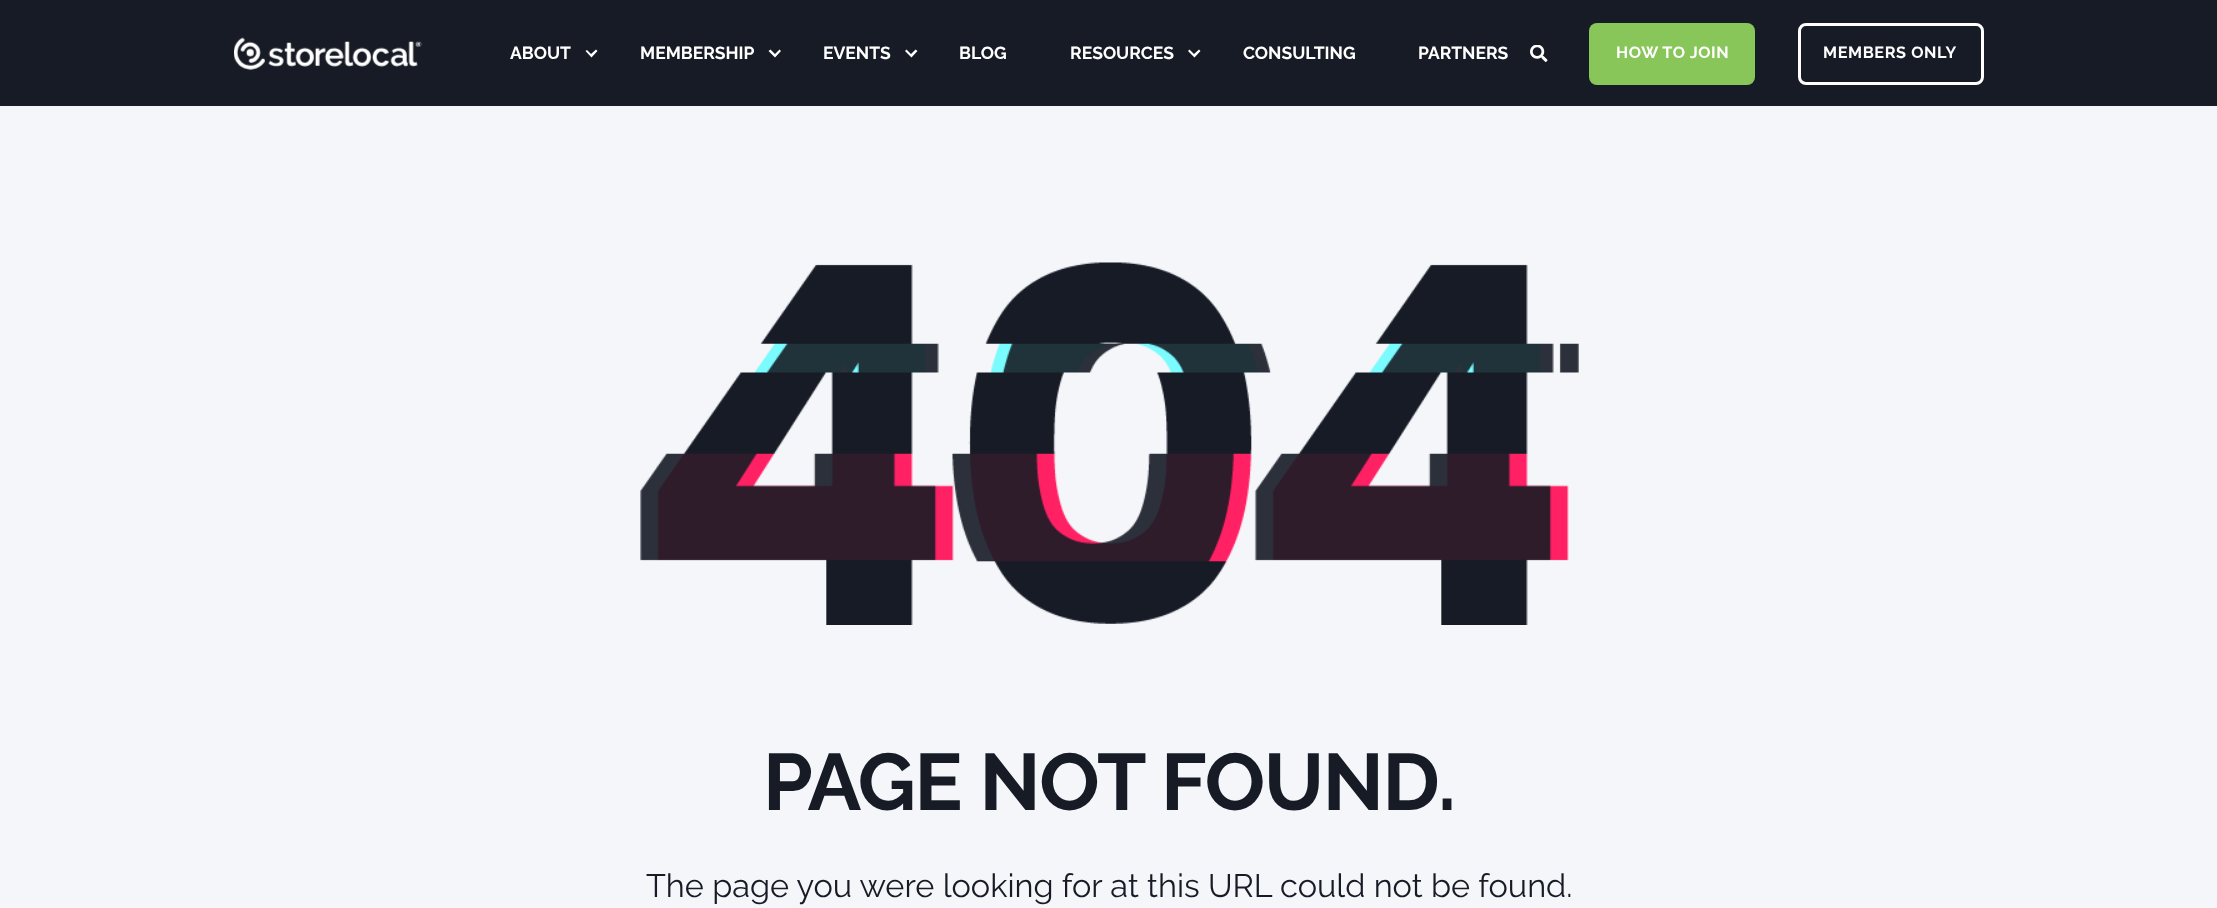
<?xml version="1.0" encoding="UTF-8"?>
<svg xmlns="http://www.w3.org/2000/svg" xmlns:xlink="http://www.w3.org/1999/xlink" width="2217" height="908">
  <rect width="100%" height="100%" fill="#f4f6fa" />
  <rect width="2217" height="106" fill="#171b25" />
  <image x="234" y="37" width="188" height="33" xlink:href="image1.png" />
  <path d="M 597.5 51 l -1.5 -1.5 l -5 4.5 l -4 -4 l -1.5 1 l 6 6.5 z" fill="#ffffff" />
  <path d="M 781 51 l -1.5 -1.5 l -4.5 4.5 l -4.5 -4.5 l -2 1.5 l 6.5 6.5 z" fill="#ffffff" />
  <path d="M 917.5 51 l -2 -1.5 l -4.5 4.5 l -4.5 -4.5 l -1.5 1.5 l 6.5 6.5 z" fill="#ffffff" />
  <path d="M 1200.5 51 l -1.5 -1.5 l -5 4.5 l -4.5 -4.5 l -1.5 1.5 l 6.5 6.5 z" fill="#ffffff" />
  <image x="1530" y="45" width="18" height="17" xlink:href="image2.png" />
  <rect x="1589" y="23" width="166" height="62" rx="8" fill="#88c659" />
  <rect x="1799.5" y="24.5" width="183" height="59" rx="6.5" fill="none" stroke="#ffffff" stroke-width="3" />
  <image x="640" y="262" width="939" height="363" xlink:href="image3.png" />
  <text x="510" y="59" style="font-family: Raleway; font-size: 17.5px; font-weight: bold; fill: #ffffff">ABOUT</text>
  <text x="640" y="59" style="font-family: Raleway; font-size: 17.5px; font-weight: bold; fill: #ffffff">MEMBERSHIP</text>
  <text x="823" y="59" style="font-family: Raleway; font-size: 17.5px; font-weight: bold; fill: #ffffff">EVENTS</text>
  <text x="959" y="59" style="font-family: Raleway; font-size: 17.5px; font-weight: bold; fill: #ffffff">BLOG</text>
  <text x="1070" y="59" style="font-family: Raleway; font-size: 17.5px; font-weight: bold; fill: #ffffff">RESOURCES</text>
  <text x="1243" y="59" style="font-family: Raleway; font-size: 17.5px; font-weight: bold; fill: #ffffff">CONSULTING</text>
  <text x="1418" y="59" style="font-family: Raleway; font-size: 17.5px; font-weight: bold; fill: #ffffff">PARTNERS</text>
  <text x="1616" y="58" style="font-family: Raleway; font-size: 16.25px; font-weight: bold; letter-spacing: 0.6px; fill: #ffffff">HOW TO JOIN</text>
  <text x="1823" y="58" style="font-family: Raleway; font-size: 16.25px; font-weight: bold; letter-spacing: 0.6px; fill: #ffffff">MEMBERS ONLY</text>
  <text x="763" y="810" style="font-family: Raleway; font-size: 80px; font-weight: bold; letter-spacing: -1.25px; fill: #171b25">PAGE NOT FOUND.</text>
  <text x="646" y="897" style="font-family: Raleway; font-size: 32.5px; fill: #171b25">The page you were looking for at this URL could not be found.</text>
</svg>
